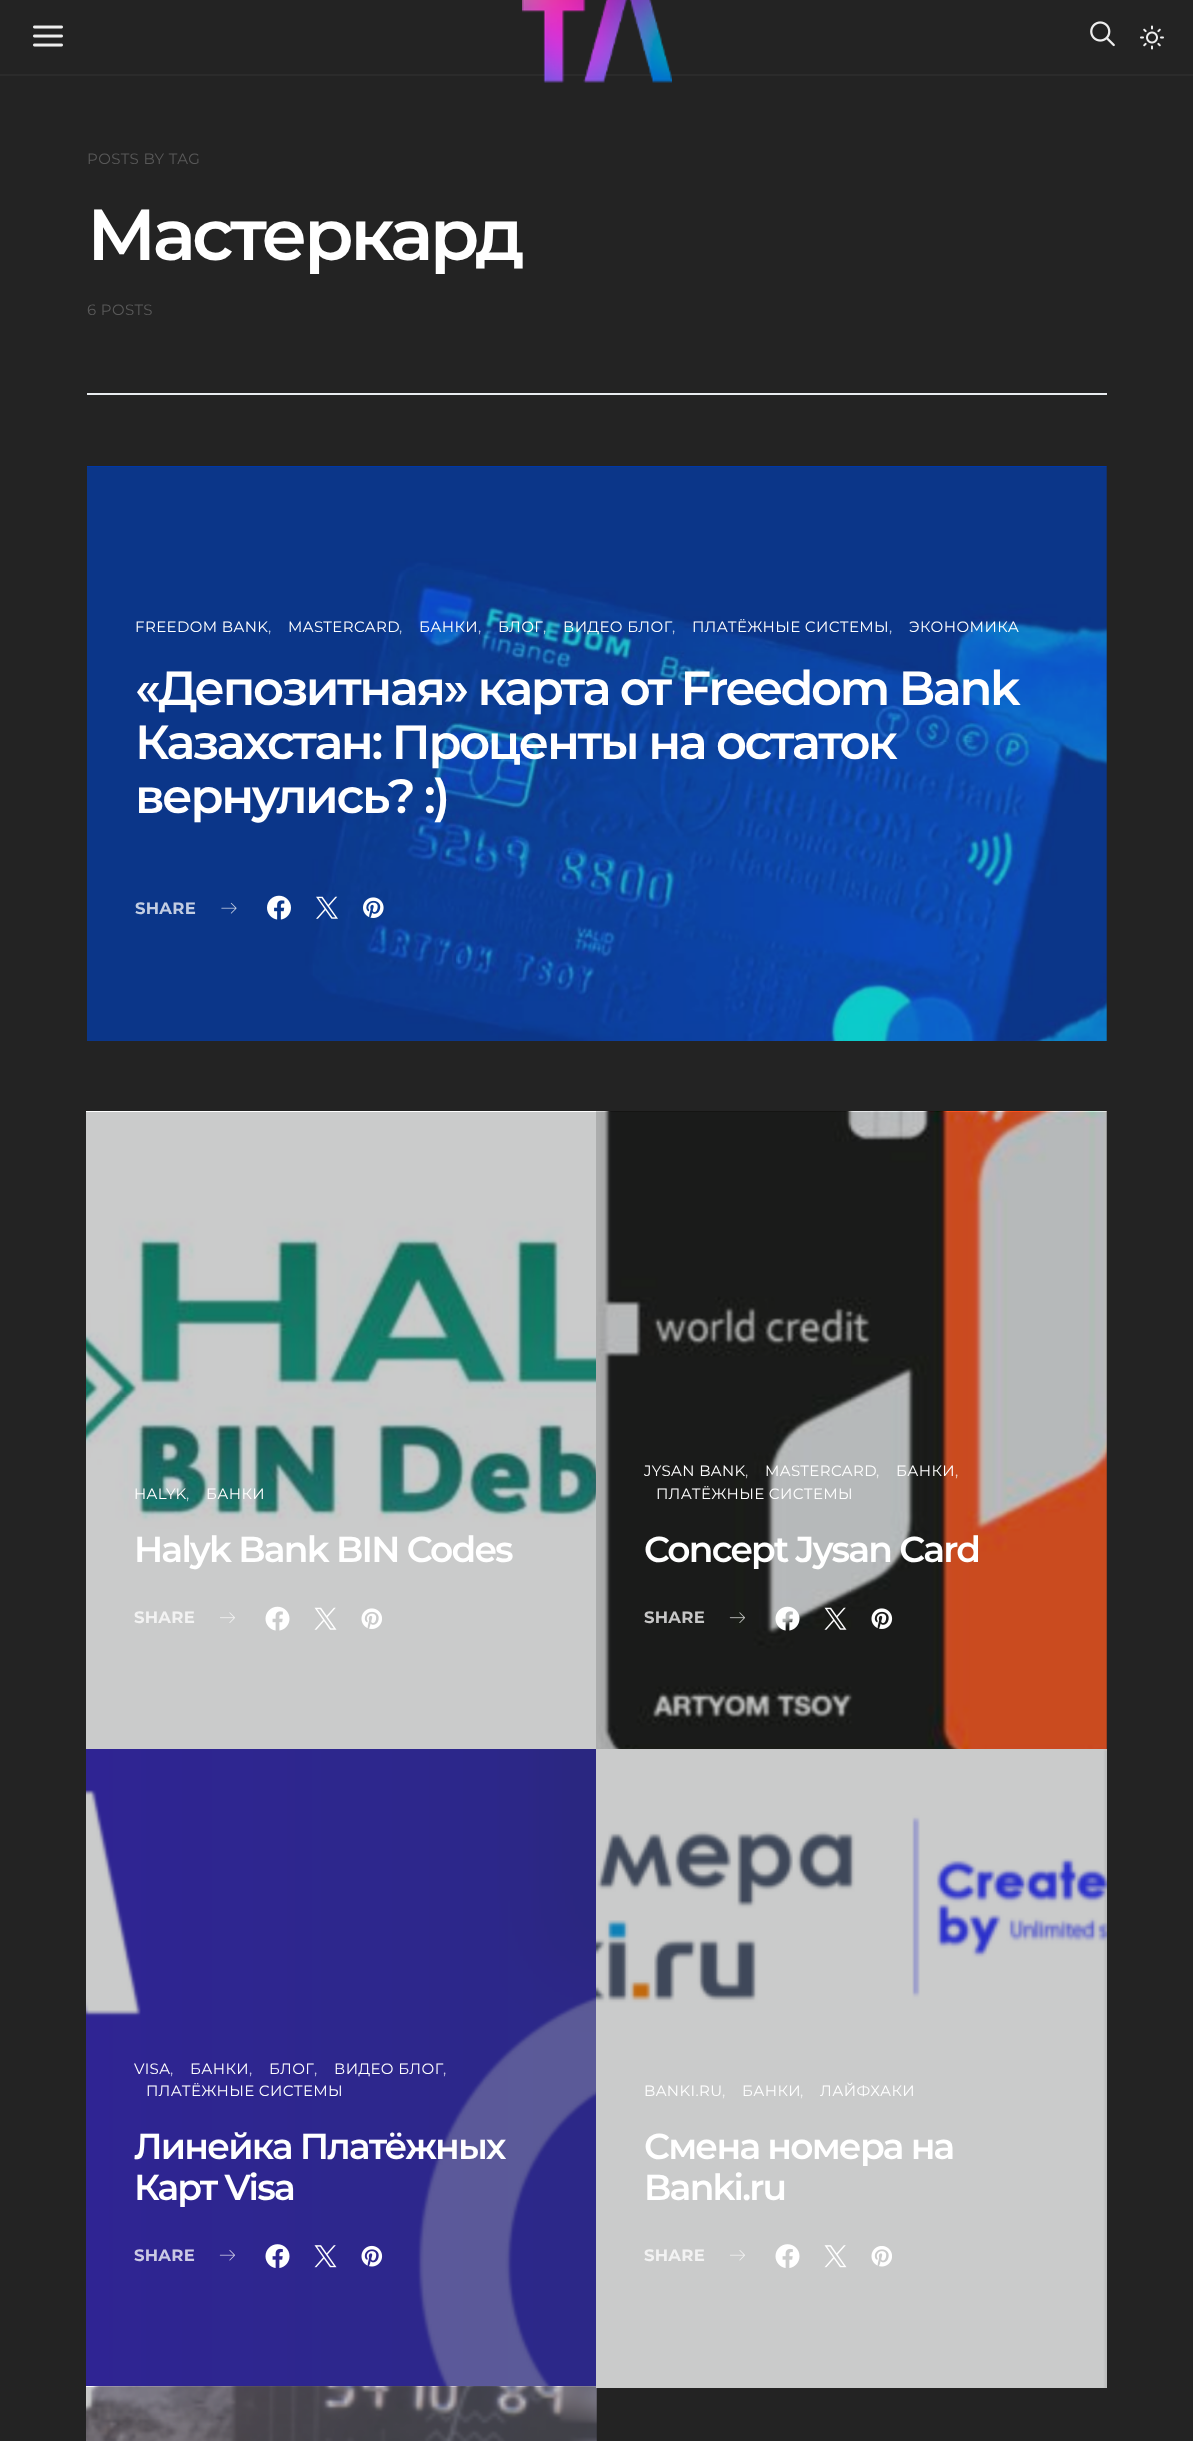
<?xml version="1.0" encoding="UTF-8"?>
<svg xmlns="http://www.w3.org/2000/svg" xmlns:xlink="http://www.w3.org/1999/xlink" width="1193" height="2441">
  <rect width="100%" height="100%" fill="#232323" />
  <rect x="1106" y="467" width="1" height="574" fill="#252626" />
  <rect y="74" width="1193" height="2" fill="#2b2b2b" />
  <image x="33" y="25" width="30" height="22" xlink:href="image1.png" />
  <image x="522" y="0" width="150" height="83" xlink:href="image2.png" />
  <image x="1090" y="21" width="25" height="26" xlink:href="image3.png" />
  <image x="1140" y="25" width="24" height="25" xlink:href="image4.png" />
  <rect x="87" y="393" width="1020" height="2" fill="#e9ecef" />
  <image x="87" y="466" width="1020" height="575" xlink:href="image5.png" />
  <image x="221" y="902" width="16" height="12" xlink:href="image6.png" />
  <image x="267" y="895" width="24" height="25" xlink:href="image7.png" />
  <image x="316" y="896" width="22" height="23" xlink:href="image8.png" />
  <image x="363" y="897" width="21" height="21" xlink:href="image9.png" />
  <image x="86" y="1111" width="510" height="638" xlink:href="image10.png" />
  <image x="220" y="1612" width="15" height="11" xlink:href="image11.png" />
  <image x="265" y="1606" width="25" height="25" xlink:href="image12.png" />
  <image x="314" y="1607" width="23" height="23" xlink:href="image13.png" />
  <image x="361" y="1608" width="21" height="21" xlink:href="image14.png" />
  <image x="86" y="1749" width="510" height="637" xlink:href="image15.png" />
  <rect x="86" y="1749" width="510" height="637" fill="#2c2f30" fill-opacity="0.25" />
  <image x="219" y="2249" width="16" height="12" xlink:href="image16.png" />
  <image x="265" y="2244" width="25" height="24" xlink:href="image17.png" />
  <image x="314" y="2245" width="23" height="23" xlink:href="image18.png" />
  <image x="361" y="2245" width="22" height="22" xlink:href="image19.png" />
  <image x="86" y="2386" width="511" height="55" xlink:href="image20.png" />
  <rect x="86" y="2387" width="511" height="54" fill="#2c2f30" fill-opacity="0.25" />
  <image x="596" y="1111" width="511" height="640" xlink:href="image21.png" />
  <rect x="596" y="1112" width="511" height="639" fill="#2c2f30" fill-opacity="0.25" />
  <image x="729" y="1612" width="16" height="11" xlink:href="image22.png" />
  <image x="775" y="1606" width="25" height="25" xlink:href="image23.png" />
  <image x="824" y="1607" width="23" height="23" xlink:href="image24.png" />
  <image x="871" y="1608" width="22" height="21" xlink:href="image25.png" />
  <image x="596" y="1749" width="511" height="639" xlink:href="image26.png" />
  <rect x="596" y="1749" width="511" height="639" fill="#2c2f30" fill-opacity="0.25" />
  <image x="730" y="2250" width="15" height="11" xlink:href="image27.png" />
  <image x="775" y="2244" width="25" height="24" xlink:href="image28.png" />
  <image x="824" y="2245" width="23" height="23" xlink:href="image29.png" />
  <image x="871" y="2246" width="21" height="21" xlink:href="image30.png" />
  <text x="87" y="164" style="font-family: Montserrat; font-size: 15px; letter-spacing: 0.4px; fill: #595959">POSTS BY TAG</text>
  <text x="87" y="260" style="font-family: Montserrat; font-size: 72px; font-weight: 600; letter-spacing: -3.6px; fill: #ffffff">Мастеркард</text>
  <text x="87" y="315" style="font-family: Montserrat; font-size: 15px; letter-spacing: 0.4px; fill: #595959">6 POSTS</text>
  <text x="135" y="632" style="font-family: Montserrat; font-size: 15px; letter-spacing: 0.4px; fill: #ffffff">FREEDOM BANK</text>
  <text x="268" y="632" style="font-family: Montserrat; font-size: 15px; letter-spacing: 0.4px; fill: #c2cde2">,</text>
  <text x="288" y="632" style="font-family: Montserrat; font-size: 15px; letter-spacing: 0.4px; fill: #ffffff">MASTERCARD</text>
  <text x="399" y="632" style="font-family: Montserrat; font-size: 15px; letter-spacing: 0.4px; fill: #c2cde2">,</text>
  <text x="419" y="632" style="font-family: Montserrat; font-size: 15px; letter-spacing: 0.4px; fill: #ffffff">БАНКИ</text>
  <text x="478" y="632" style="font-family: Montserrat; font-size: 15px; letter-spacing: 0.4px; fill: #c2cde2">,</text>
  <text x="498" y="632" style="font-family: Montserrat; font-size: 15px; letter-spacing: 0.4px; fill: #ffffff">БЛОГ</text>
  <text x="543" y="632" style="font-family: Montserrat; font-size: 15px; letter-spacing: 0.4px; fill: #c3dbe8">,</text>
  <text x="563" y="632" style="font-family: Montserrat; font-size: 15px; letter-spacing: 0.4px; fill: #ffffff">ВИДЕО БЛОГ</text>
  <text x="672" y="632" style="font-family: Montserrat; font-size: 15px; letter-spacing: 0.4px; fill: #c2cde2">,</text>
  <text x="692" y="632" style="font-family: Montserrat; font-size: 15px; letter-spacing: 0.4px; fill: #ffffff">ПЛАТЁЖНЫЕ СИСТЕМЫ</text>
  <text x="889" y="632" style="font-family: Montserrat; font-size: 15px; letter-spacing: 0.4px; fill: #c2cde2">,</text>
  <text x="909" y="632" style="font-family: Montserrat; font-size: 15px; letter-spacing: 0.4px; fill: #ffffff">ЭКОНОМИКА</text>
  <text x="135" y="705" style="font-family: Montserrat; font-size: 48px; font-weight: 600; letter-spacing: -2.4px; fill: #ffffff">«Депозитная» карта от Freedom Bank</text>
  <text x="135" y="759" style="font-family: Montserrat; font-size: 48px; font-weight: 600; letter-spacing: -2.4px; fill: #ffffff">Казахстан: Проценты на остаток</text>
  <text x="135" y="813" style="font-family: Montserrat; font-size: 48px; font-weight: 600; letter-spacing: -2.4px; fill: #ffffff">вернулись? :)</text>
  <text x="135" y="914" style="font-family: Montserrat; font-size: 16.5px; font-weight: bold; letter-spacing: 0.25px; fill: #c2cde2">SHARE</text>
  <text x="134" y="1499" style="font-family: Montserrat; font-size: 15px; letter-spacing: 0.4px; fill: #ffffff">HALYK</text>
  <text x="186" y="1499" style="font-family: Montserrat; font-size: 15px; letter-spacing: 0.4px; fill: #c6dcda">,</text>
  <text x="206" y="1499" style="font-family: Montserrat; font-size: 15px; letter-spacing: 0.4px; fill: #ffffff">БАНКИ</text>
  <text x="134" y="1562" style="font-family: Montserrat; font-size: 36px; font-weight: 600; letter-spacing: -1.8px; fill: #ffffff">Halyk Bank BIN Codes</text>
  <text x="134" y="1623" style="font-family: Montserrat; font-size: 16.5px; font-weight: bold; letter-spacing: 0.25px; fill: #f2f2f2">SHARE</text>
  <text x="134" y="2074" style="font-family: Montserrat; font-size: 15px; letter-spacing: 0.4px; fill: #ffffff">VISA</text>
  <text x="170" y="2074" style="font-family: Montserrat; font-size: 15px; letter-spacing: 0.4px; fill: #cbc9e4">,</text>
  <text x="190" y="2074" style="font-family: Montserrat; font-size: 15px; letter-spacing: 0.4px; fill: #ffffff">БАНКИ</text>
  <text x="249" y="2074" style="font-family: Montserrat; font-size: 15px; letter-spacing: 0.4px; fill: #cbc9e4">,</text>
  <text x="269" y="2074" style="font-family: Montserrat; font-size: 15px; letter-spacing: 0.4px; fill: #ffffff">БЛОГ</text>
  <text x="314" y="2074" style="font-family: Montserrat; font-size: 15px; letter-spacing: 0.4px; fill: #cbc9e4">,</text>
  <text x="334" y="2074" style="font-family: Montserrat; font-size: 15px; letter-spacing: 0.4px; fill: #ffffff">ВИДЕО БЛОГ</text>
  <text x="443" y="2074" style="font-family: Montserrat; font-size: 15px; letter-spacing: 0.4px; fill: #cbc9e4">,</text>
  <text x="146" y="2096" style="font-family: Montserrat; font-size: 15px; letter-spacing: 0.4px; fill: #ffffff">ПЛАТЁЖНЫЕ СИСТЕМЫ</text>
  <text x="134" y="2159" style="font-family: Montserrat; font-size: 36px; font-weight: 600; letter-spacing: -1.8px; fill: #ffffff">Линейка Платёжных</text>
  <text x="134" y="2200" style="font-family: Montserrat; font-size: 36px; font-weight: 600; letter-spacing: -1.8px; fill: #ffffff">Карт Visa</text>
  <text x="134" y="2261" style="font-family: Montserrat; font-size: 16.5px; font-weight: bold; letter-spacing: 0.25px; fill: #cbc9e4">SHARE</text>
  <text x="644" y="1476" style="font-family: Montserrat; font-size: 15px; letter-spacing: 0.4px; fill: #ffffff">JYSAN BANK</text>
  <text x="745" y="1476" style="font-family: Montserrat; font-size: 15px; letter-spacing: 0.4px; fill: #c6c6c6">,</text>
  <text x="765" y="1476" style="font-family: Montserrat; font-size: 15px; letter-spacing: 0.4px; fill: #ffffff">MASTERCARD</text>
  <text x="876" y="1476" style="font-family: Montserrat; font-size: 15px; letter-spacing: 0.4px; fill: #f2f2f2">,</text>
  <text x="896" y="1476" style="font-family: Montserrat; font-size: 15px; letter-spacing: 0.4px; fill: #ffffff">БАНКИ</text>
  <text x="955" y="1476" style="font-family: Montserrat; font-size: 15px; letter-spacing: 0.4px; fill: #f2d2c7">,</text>
  <text x="656" y="1499" style="font-family: Montserrat; font-size: 15px; letter-spacing: 0.4px; fill: #ffffff">ПЛАТЁЖНЫЕ СИСТЕМЫ</text>
  <text x="644" y="1562" style="font-family: Montserrat; font-size: 36px; font-weight: 600; letter-spacing: -1.8px; fill: #ffffff">Concept Jysan Card</text>
  <text x="644" y="1623" style="font-family: Montserrat; font-size: 16.5px; font-weight: bold; letter-spacing: 0.25px; fill: #c6c6c6">SHARE</text>
  <text x="644" y="2096" style="font-family: Montserrat; font-size: 15px; letter-spacing: 0.4px; fill: #ffffff">BANKI.RU</text>
  <text x="722" y="2096" style="font-family: Montserrat; font-size: 15px; letter-spacing: 0.4px; fill: #f2f2f2">,</text>
  <text x="742" y="2096" style="font-family: Montserrat; font-size: 15px; letter-spacing: 0.4px; fill: #ffffff">БАНКИ</text>
  <text x="800" y="2096" style="font-family: Montserrat; font-size: 15px; letter-spacing: 0.4px; fill: #f2f2f2">,</text>
  <text x="820" y="2096" style="font-family: Montserrat; font-size: 15px; letter-spacing: 0.4px; fill: #ffffff">ЛАЙФХАКИ</text>
  <text x="644" y="2159" style="font-family: Montserrat; font-size: 36px; font-weight: 600; letter-spacing: -1.8px; fill: #ffffff">Смена номера на</text>
  <text x="644" y="2200" style="font-family: Montserrat; font-size: 36px; font-weight: 600; letter-spacing: -1.8px; fill: #ffffff">Banki.ru</text>
  <text x="644" y="2261" style="font-family: Montserrat; font-size: 16.5px; font-weight: bold; letter-spacing: 0.25px; fill: #f2f2f2">SHARE</text>
</svg>
